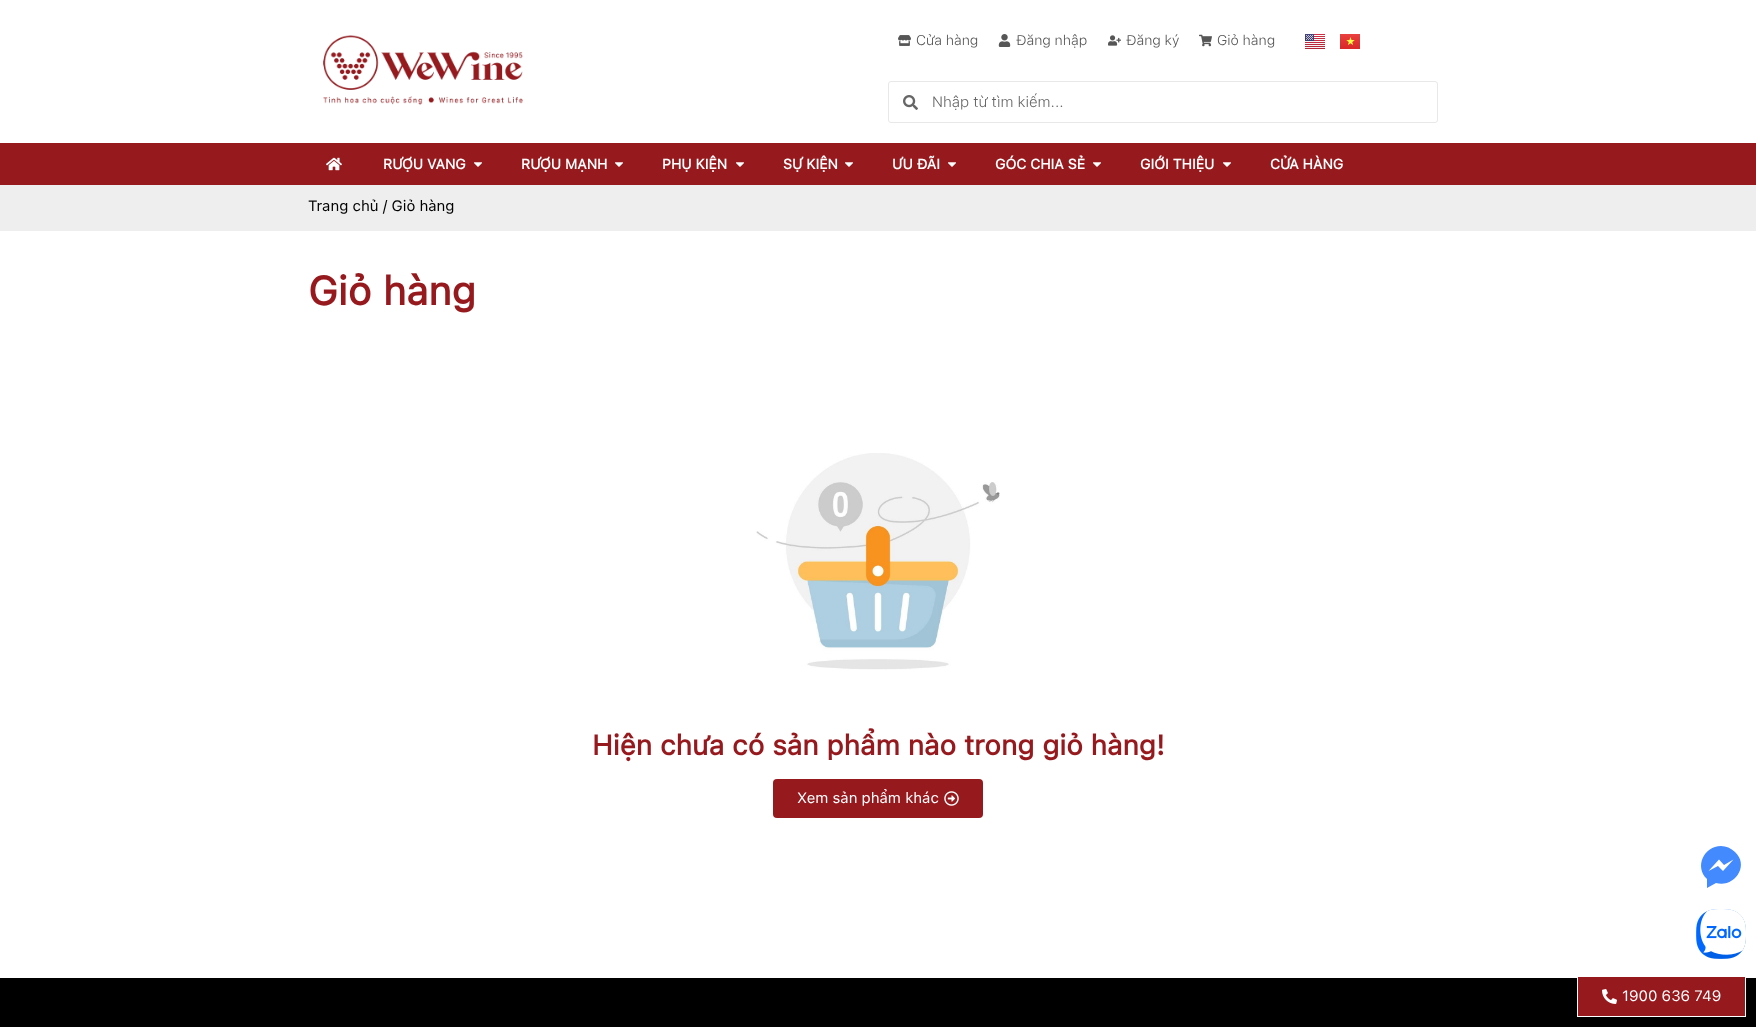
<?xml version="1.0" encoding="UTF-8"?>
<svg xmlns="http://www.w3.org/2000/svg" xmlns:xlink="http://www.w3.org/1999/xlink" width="1756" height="1027">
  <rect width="100%" height="100%" fill="#ffffff" />
  <image x="323" y="35" width="200" height="70" xlink:href="image1.png" />
  <image x="898" y="35" width="13" height="11" xlink:href="image2.png" />
  <image x="998" y="34" width="13" height="13" xlink:href="image3.png" />
  <image x="1108" y="35" width="13" height="11" xlink:href="image4.png" />
  <image x="1199" y="34" width="13" height="13" xlink:href="image5.png" />
  <image x="1305" y="34" width="20" height="15" xlink:href="image6.png" />
  <image x="1340" y="34" width="20" height="15" xlink:href="image7.png" />
  <rect x="888.5" y="81.5" width="549" height="41" rx="2.5" fill="none" stroke="#e8e8e8" />
  <image x="903" y="95" width="15" height="15" xlink:href="image8.png" />
  <rect y="143" width="1756" height="42" fill="#96191e" />
  <image x="326" y="157" width="16" height="14" xlink:href="image9.png" />
  <image x="474" y="162" width="8" height="5" xlink:href="image10.png" />
  <image x="615" y="162" width="8" height="5" xlink:href="image10.png" />
  <image x="736" y="162" width="8" height="5" xlink:href="image10.png" />
  <image x="845" y="162" width="8" height="5" xlink:href="image10.png" />
  <image x="948" y="162" width="8" height="5" xlink:href="image10.png" />
  <image x="1093" y="162" width="8" height="5" xlink:href="image10.png" />
  <image x="1223" y="162" width="8" height="5" xlink:href="image10.png" />
  <rect y="185" width="1756" height="46" fill="#eeeeee" />
  <image x="756" y="453" width="244" height="217" xlink:href="image11.png" />
  <rect x="773" y="779" width="210" height="39" rx="4" fill="#96191e" />
  <image x="944" y="791" width="15" height="15" xlink:href="image12.png" />
  <rect y="978" width="1756" height="49" fill="#000000" />
  <path d="M 1721 846 c -17 0 -27 21 -14 33 v 9 l 9 -5 c 18 5 34 -17 19 -31 c -4 -4 -9 -6 -14 -6 z" fill="#448aff" />
  <path d="M 1708.5 871 l 10.5 -11.5 l 5 5.5 l 9.5 -5.5 l -10.5 11.5 l -5 -5 z" fill="#ffffff" />
  <image x="1696" y="909" width="50" height="50" xlink:href="image13.png" />
  <rect x="1577.5" y="976.5" width="168" height="40" fill="#96191e" stroke="#ffffff" />
  <image x="1602" y="989" width="15" height="15" xlink:href="image14.png" />
  <text x="916" y="45" style="font-family: SF Pro Text; font-size: 14px; font-weight: 300; fill: #565656">Cửa hàng</text>
  <text x="1016" y="45" style="font-family: SF Pro Text; font-size: 14px; font-weight: 300; fill: #565656">Đăng nhập</text>
  <text x="1126" y="45" style="font-family: SF Pro Text; font-size: 14px; font-weight: 300; fill: #565656">Đăng ký</text>
  <text x="1217" y="45" style="font-family: SF Pro Text; font-size: 14px; font-weight: 300; fill: #565656">Giỏ hàng</text>
  <text x="932" y="107" style="font-family: SF Pro Text; font-size: 15px; font-weight: 300; fill: #666666">Nhập từ tìm kiếm...</text>
  <text x="383" y="169" style="font-family: SF Pro Text; font-size: 14px; font-weight: bold; fill: #ffffff">RƯỢU VANG</text>
  <text x="521" y="169" style="font-family: SF Pro Text; font-size: 14px; font-weight: bold; fill: #ffffff">RƯỢU MẠNH</text>
  <text x="662" y="169" style="font-family: SF Pro Text; font-size: 14px; font-weight: bold; fill: #ffffff">PHỤ KIỆN</text>
  <text x="783" y="169" style="font-family: SF Pro Text; font-size: 14px; font-weight: bold; fill: #ffffff">SỰ KIỆN</text>
  <text x="892" y="169" style="font-family: SF Pro Text; font-size: 14px; font-weight: bold; fill: #ffffff">ƯU ĐÃI</text>
  <text x="995" y="169" style="font-family: SF Pro Text; font-size: 14px; font-weight: bold; fill: #ffffff">GÓC CHIA SẺ</text>
  <text x="1140" y="169" style="font-family: SF Pro Text; font-size: 14px; font-weight: bold; fill: #ffffff">GIỚI THIỆU</text>
  <text x="1270" y="169" style="font-family: SF Pro Text; font-size: 14px; font-weight: bold; fill: #ffffff">CỬA HÀNG</text>
  <text x="308" y="211" style="font-family: SF Pro Text; font-size: 15px; fill: #000000">Trang chủ / Giỏ hàng</text>
  <text x="308" y="305" style="font-family: SF Pro Text; font-size: 40px; font-weight: bold; fill: #96191e">Giỏ hàng</text>
  <text x="592" y="755" style="font-family: SF Pro Text; font-size: 28px; font-weight: bold; fill: #96191e">Hiện chưa có sản phẩm nào trong giỏ hàng!</text>
  <text x="797" y="803" style="font-family: SF Pro Text; font-size: 15px; fill: #ffffff">Xem sản phẩm khác</text>
  <text x="1622" y="1001" style="font-family: SF Pro Text; font-size: 15px; fill: #ffffff">1900 636 749</text>
</svg>
